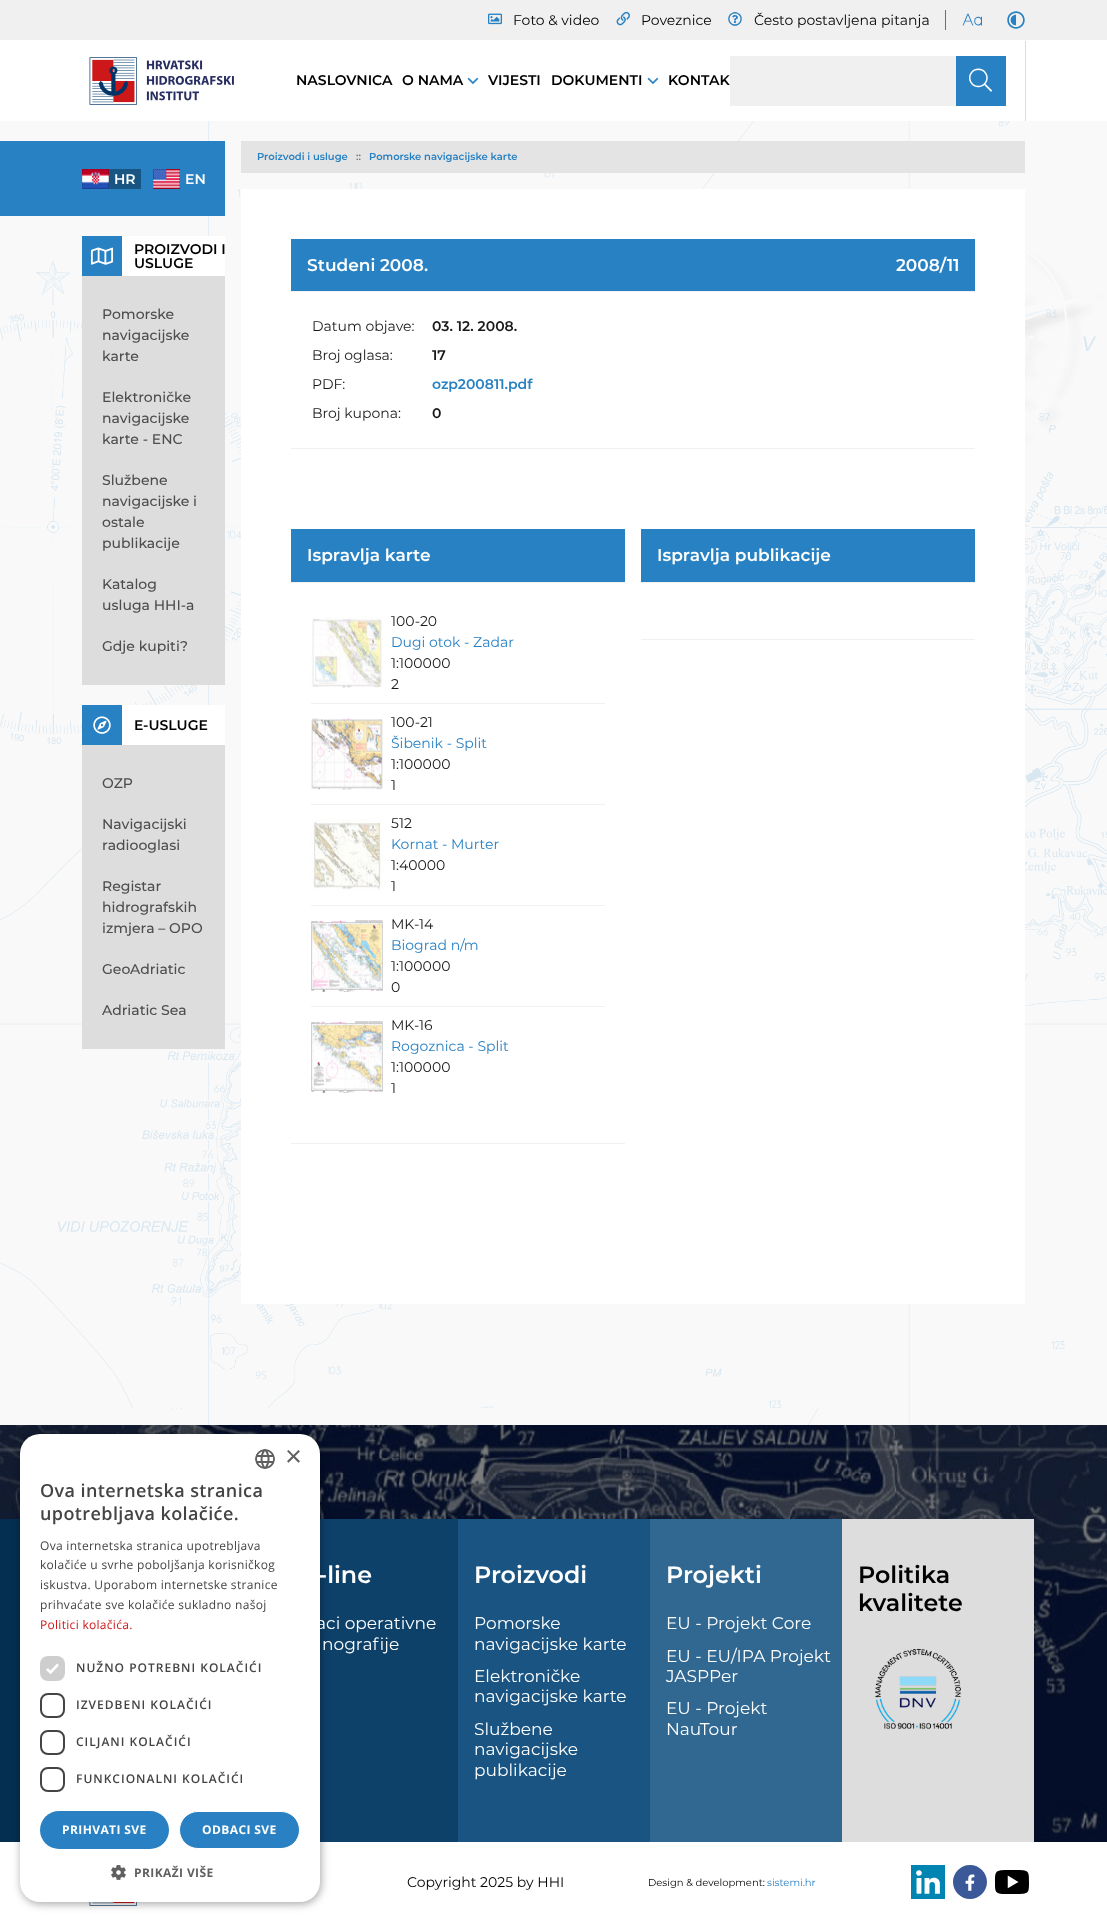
<?xml version="1.0" encoding="UTF-8"?>
<svg xmlns="http://www.w3.org/2000/svg" xmlns:xlink="http://www.w3.org/1999/xlink" width="1107" height="1922">
  <rect width="100%" height="100%" fill="#ffffff" />
  <image x="0" y="121" width="1107" height="1304" xlink:href="image1.png" />
  <rect width="1107" height="40" fill="#f0f0f0" />
  <image x="488" y="13" width="14" height="12" xlink:href="image2.png" />
  <image x="616" y="11" width="14" height="15" xlink:href="image3.png" />
  <rect x="945" y="10" width="1" height="20" fill="#2881c3" />
  <image x="962" y="13" width="20" height="13" xlink:href="image4.png" />
  <image x="1007" y="11" width="18" height="18" xlink:href="image5.png" />
  <image x="89" y="57" width="145" height="48" xlink:href="image6.png" />
  <rect x="1025" y="41" width="1" height="80" fill="#dddddd" />
  <image x="467" y="77" width="12" height="7" xlink:href="image7.png" />
  <image x="647" y="77" width="12" height="7" xlink:href="image7.png" />
  <rect x="730" y="56" width="226" height="50" fill="#f0f0f0" />
  <rect x="956" y="56" width="50" height="50" fill="#2881c3" />
  <rect y="141" width="225" height="75" fill="#2881c3" />
  <rect x="82" y="169" width="59" height="20" fill="#195583" />
  <image x="82" y="169" width="27" height="20" xlink:href="image8.png" />
  <image x="153" y="169" width="27" height="20" xlink:href="image9.png" />
  <rect x="122" y="236" width="103" height="40" fill="#ffffff" />
  <rect x="82" y="236" width="40" height="40" fill="#2881c3" />
  <image x="90" y="247" width="24" height="18" xlink:href="image10.png" />
  <rect x="82" y="276" width="143" height="409" fill="#dddddd" />
  <rect x="122" y="705" width="103" height="40" fill="#ffffff" />
  <rect x="82" y="705" width="40" height="40" fill="#2881c3" />
  <image x="93" y="716" width="18" height="18" xlink:href="image11.png" />
  <rect x="82" y="745" width="143" height="304" fill="#dddddd" />
  <rect x="241" y="141" width="784" height="32" fill="#e4e4e4" />
  <rect x="241" y="189" width="784" height="1115" fill="#ffffff" />
  <rect x="291" y="239" width="684" height="52" fill="#2881c3" />
  <rect x="291" y="291" width="684" height="1" fill="#f1f1f1" />
  <rect x="291" y="448" width="684" height="1" fill="#f1f1f1" />
  <rect x="291" y="529" width="334" height="53" fill="#2881c3" />
  <rect x="291" y="582" width="334" height="1" fill="#f1f1f1" />
  <rect x="291" y="1143" width="334" height="1" fill="#f1f1f1" />
  <rect x="311" y="703" width="294" height="1" fill="#f1f1f1" />
  <image x="311" y="617" width="72" height="72" xlink:href="image12.png" />
  <rect x="311" y="804" width="294" height="1" fill="#f1f1f1" />
  <image x="311" y="718" width="72" height="72" xlink:href="image13.png" />
  <rect x="311" y="905" width="294" height="1" fill="#f1f1f1" />
  <image x="311" y="819" width="72" height="71" xlink:href="image14.png" />
  <rect x="311" y="1006" width="294" height="1" fill="#f1f1f1" />
  <image x="311" y="920" width="72" height="72" xlink:href="image15.png" />
  <image x="311" y="1021" width="72" height="72" xlink:href="image16.png" />
  <rect x="641" y="529" width="334" height="53" fill="#2881c3" />
  <rect x="641" y="582" width="334" height="1" fill="#f1f1f1" />
  <rect x="641" y="639" width="334" height="1" fill="#f1f1f1" />
  <image x="0" y="1425" width="1107" height="417" xlink:href="image17.png" />
  <rect y="1519" width="20" height="323" fill="#042f50" />
  <rect x="320" y="1519" width="138" height="323" fill="#0d416a" />
  <rect x="458" y="1519" width="192" height="323" fill="#195482" />
  <rect x="650" y="1519" width="192" height="323" fill="#316892" />
  <rect x="842" y="1519" width="192" height="323" fill="#dddddd" />
  <image x="875" y="1648" width="86" height="82" xlink:href="image18.png" />
  <image x="911" y="1865" width="34" height="34" xlink:href="image19.png" />
  <image x="953" y="1865" width="34" height="34" xlink:href="image20.png" />
  <image x="994" y="1870" width="35" height="24" xlink:href="image21.png" />
  <image x="89" y="1902" width="48" height="4" xlink:href="image22.png" />
  <rect x="21" y="1436" width="300" height="468" rx="20" fill="#000000" fill-opacity="0.35" filter="blur(4px)" />
  <text x="513" y="25" style="font-family: Montserrat; font-size: 14px; fill: #000000">Foto &amp; video</text>
  <text x="641" y="25" style="font-family: Montserrat; font-size: 14px; fill: #000000">Poveznice</text>
  <text x="728" y="25" style="font-family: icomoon; font-size: 14px; fill: #2881c3">?</text>
  <text x="754" y="25" style="font-family: Montserrat; font-size: 14px; fill: #000000">Često postavljena pitanja</text>
  <text x="296" y="85" style="font-family: Montserrat; font-size: 14px; font-weight: 600; fill: #000000">NASLOVNICA</text>
  <text x="402" y="85" style="font-family: Montserrat; font-size: 14px; font-weight: 600; fill: #000000">O NAMA</text>
  <text x="488" y="85" style="font-family: Montserrat; font-size: 14px; font-weight: 600; fill: #000000">VIJESTI</text>
  <text x="551" y="85" style="font-family: Montserrat; font-size: 14px; font-weight: 600; fill: #000000">DOKUMENTI</text>
  <text x="668" y="85" style="font-family: Montserrat; font-size: 14px; font-weight: 600; fill: #000000">KONTAK</text>
  <text x="969" y="91" style="font-family: icomoon; font-size: 24px; fill: #fdfefe">S</text>
  <text x="114" y="184" style="font-family: Montserrat; font-size: 14px; font-weight: 600; fill: #fdfefe">HR</text>
  <text x="185" y="184" style="font-family: Montserrat; font-size: 14px; font-weight: 600; fill: #fdfefe">EN</text>
  <text x="134" y="254" style="font-family: Montserrat; font-size: 14px; font-weight: 600; fill: #000000">PROIZVODI I</text>
  <text x="134" y="268" style="font-family: Montserrat; font-size: 14px; font-weight: 600; fill: #000000">USLUGE</text>
  <text x="102" y="319" style="font-family: Montserrat; font-size: 14px; font-weight: 500; fill: #4d4d4d">Pomorske</text>
  <text x="102" y="340" style="font-family: Montserrat; font-size: 14px; font-weight: 500; fill: #4d4d4d">navigacijske</text>
  <text x="102" y="361" style="font-family: Montserrat; font-size: 14px; font-weight: 500; fill: #4d4d4d">karte</text>
  <text x="102" y="402" style="font-family: Montserrat; font-size: 14px; font-weight: 500; fill: #4d4d4d">Elektroničke</text>
  <text x="102" y="423" style="font-family: Montserrat; font-size: 14px; font-weight: 500; fill: #4d4d4d">navigacijske</text>
  <text x="102" y="444" style="font-family: Montserrat; font-size: 14px; font-weight: 500; fill: #4d4d4d">karte - ENC</text>
  <text x="102" y="485" style="font-family: Montserrat; font-size: 14px; font-weight: 500; fill: #4d4d4d">Službene</text>
  <text x="102" y="506" style="font-family: Montserrat; font-size: 14px; font-weight: 500; fill: #4d4d4d">navigacijske i</text>
  <text x="102" y="527" style="font-family: Montserrat; font-size: 14px; font-weight: 500; fill: #4d4d4d">ostale</text>
  <text x="102" y="548" style="font-family: Montserrat; font-size: 14px; font-weight: 500; fill: #4d4d4d">publikacije</text>
  <text x="102" y="589" style="font-family: Montserrat; font-size: 14px; font-weight: 500; fill: #4d4d4d">Katalog</text>
  <text x="102" y="610" style="font-family: Montserrat; font-size: 14px; font-weight: 500; fill: #4d4d4d">usluga HHI-a</text>
  <text x="102" y="651" style="font-family: Montserrat; font-size: 14px; font-weight: 500; fill: #4d4d4d">Gdje kupiti?</text>
  <text x="134" y="730" style="font-family: Montserrat; font-size: 14px; font-weight: 600; fill: #000000">E-USLUGE</text>
  <text x="102" y="788" style="font-family: Montserrat; font-size: 14px; font-weight: 500; fill: #4d4d4d">OZP</text>
  <text x="102" y="829" style="font-family: Montserrat; font-size: 14px; font-weight: 500; fill: #4d4d4d">Navigacijski</text>
  <text x="102" y="850" style="font-family: Montserrat; font-size: 14px; font-weight: 500; fill: #4d4d4d">radiooglasi</text>
  <text x="102" y="891" style="font-family: Montserrat; font-size: 14px; font-weight: 500; fill: #4d4d4d">Registar</text>
  <text x="102" y="912" style="font-family: Montserrat; font-size: 14px; font-weight: 500; fill: #4d4d4d">hidrografskih</text>
  <text x="102" y="933" style="font-family: Montserrat; font-size: 14px; font-weight: 500; fill: #4d4d4d">izmjera – OPO</text>
  <text x="102" y="974" style="font-family: Montserrat; font-size: 14px; font-weight: 500; fill: #4d4d4d">GeoAdriatic</text>
  <text x="102" y="1015" style="font-family: Montserrat; font-size: 14px; font-weight: 500; fill: #4d4d4d">Adriatic Sea</text>
  <text x="257" y="160" style="font-family: Montserrat; font-size: 10px; font-weight: 600; fill: #2881c3">Proizvodi i usluge</text>
  <text x="356" y="160" style="font-family: Montserrat; font-size: 10px; font-weight: 600; fill: #6c757d">::</text>
  <text x="369" y="160" style="font-family: Montserrat; font-size: 10px; font-weight: 600; fill: #2881c3">Pomorske navigacijske karte</text>
  <text x="307" y="271" style="font-family: Montserrat; font-size: 17px; font-weight: 600; fill: #fdfefe">Studeni 2008.</text>
  <text x="896" y="271" style="font-family: Montserrat; font-size: 17px; font-weight: 600; fill: #fdfefe">2008/11</text>
  <text x="312" y="331" style="font-family: Montserrat; font-size: 14px; fill: #191919">Datum objave:</text>
  <text x="432" y="331" style="font-family: Montserrat; font-size: 14px; font-weight: 600; fill: #191919">03. 12. 2008.</text>
  <text x="312" y="360" style="font-family: Montserrat; font-size: 14px; fill: #191919">Broj oglasa:</text>
  <text x="432" y="360" style="font-family: Montserrat; font-size: 14px; font-weight: 600; fill: #191919">17</text>
  <text x="312" y="389" style="font-family: Montserrat; font-size: 14px; fill: #191919">PDF:</text>
  <text x="432" y="389" style="font-family: Montserrat; font-size: 14px; font-weight: 600; fill: #2881c3">ozp200811.pdf</text>
  <text x="312" y="418" style="font-family: Montserrat; font-size: 14px; fill: #191919">Broj kupona:</text>
  <text x="432" y="418" style="font-family: Montserrat; font-size: 14px; font-weight: 600; fill: #191919">0</text>
  <text x="307" y="561" style="font-family: Montserrat; font-size: 17px; font-weight: 600; fill: #fdfefe">Ispravlja karte</text>
  <text x="391" y="626" style="font-family: Montserrat; font-size: 14px; fill: #191919">100-20</text>
  <text x="391" y="647" style="font-family: Montserrat; font-size: 14px; fill: #2881c3">Dugi otok - Zadar</text>
  <text x="391" y="668" style="font-family: Montserrat; font-size: 14px; fill: #191919">1:100000</text>
  <text x="391" y="689" style="font-family: Montserrat; font-size: 14px; fill: #191919">2</text>
  <text x="391" y="727" style="font-family: Montserrat; font-size: 14px; fill: #191919">100-21</text>
  <text x="391" y="748" style="font-family: Montserrat; font-size: 14px; fill: #2881c3">Šibenik - Split</text>
  <text x="391" y="769" style="font-family: Montserrat; font-size: 14px; fill: #191919">1:100000</text>
  <text x="391" y="790" style="font-family: Montserrat; font-size: 14px; fill: #191919">1</text>
  <text x="391" y="828" style="font-family: Montserrat; font-size: 14px; fill: #191919">512</text>
  <text x="391" y="849" style="font-family: Montserrat; font-size: 14px; fill: #2881c3">Kornat - Murter</text>
  <text x="391" y="870" style="font-family: Montserrat; font-size: 14px; fill: #191919">1:40000</text>
  <text x="391" y="891" style="font-family: Montserrat; font-size: 14px; fill: #191919">1</text>
  <text x="391" y="929" style="font-family: Montserrat; font-size: 14px; fill: #191919">MK-14</text>
  <text x="391" y="950" style="font-family: Montserrat; font-size: 14px; fill: #2881c3">Biograd n/m</text>
  <text x="391" y="971" style="font-family: Montserrat; font-size: 14px; fill: #191919">1:100000</text>
  <text x="391" y="992" style="font-family: Montserrat; font-size: 14px; fill: #191919">0</text>
  <text x="391" y="1030" style="font-family: Montserrat; font-size: 14px; fill: #191919">MK-16</text>
  <text x="391" y="1051" style="font-family: Montserrat; font-size: 14px; fill: #2881c3">Rogoznica - Split</text>
  <text x="391" y="1072" style="font-family: Montserrat; font-size: 14px; fill: #191919">1:100000</text>
  <text x="391" y="1093" style="font-family: Montserrat; font-size: 14px; fill: #191919">1</text>
  <text x="657" y="561" style="font-family: Montserrat; font-size: 17px; font-weight: 600; fill: #fdfefe">Ispravlja publikacije</text>
  <text x="318" y="1583" style="font-family: Montserrat; font-size: 23.75px; font-weight: 600; fill: #fdfefe">-line</text>
  <text x="316" y="1629" style="font-family: Montserrat; font-size: 17px; fill: #fdfefe">aci operativne</text>
  <text x="322" y="1650" style="font-family: Montserrat; font-size: 17px; fill: #fdfefe">nografije</text>
  <text x="474" y="1583" style="font-family: Montserrat; font-size: 23.75px; font-weight: 600; fill: #fdfefe">Proizvodi</text>
  <text x="474" y="1629" style="font-family: Montserrat; font-size: 17px; fill: #fdfefe">Pomorske</text>
  <text x="474" y="1650" style="font-family: Montserrat; font-size: 17px; fill: #fdfefe">navigacijske karte</text>
  <text x="474" y="1682" style="font-family: Montserrat; font-size: 17px; fill: #fdfefe">Elektroničke</text>
  <text x="474" y="1702" style="font-family: Montserrat; font-size: 17px; fill: #fdfefe">navigacijske karte</text>
  <text x="474" y="1735" style="font-family: Montserrat; font-size: 17px; fill: #fdfefe">Službene</text>
  <text x="474" y="1755" style="font-family: Montserrat; font-size: 17px; fill: #fdfefe">navigacijske</text>
  <text x="474" y="1776" style="font-family: Montserrat; font-size: 17px; fill: #fdfefe">publikacije</text>
  <text x="666" y="1583" style="font-family: Montserrat; font-size: 23.75px; font-weight: 600; fill: #fdfefe">Projekti</text>
  <text x="666" y="1629" style="font-family: Montserrat; font-size: 17px; fill: #fdfefe">EU - Projekt Core</text>
  <text x="666" y="1662" style="font-family: Montserrat; font-size: 17px; fill: #fdfefe">EU - EU/IPA Projekt</text>
  <text x="666" y="1682" style="font-family: Montserrat; font-size: 17px; fill: #fdfefe">JASPPer</text>
  <text x="666" y="1714" style="font-family: Montserrat; font-size: 17px; fill: #fdfefe">EU - Projekt</text>
  <text x="666" y="1735" style="font-family: Montserrat; font-size: 17px; fill: #fdfefe">NauTour</text>
  <text x="858" y="1583" style="font-family: Montserrat; font-size: 23.75px; font-weight: 600; fill: #000000">Politika</text>
  <text x="858" y="1611" style="font-family: Montserrat; font-size: 23.75px; font-weight: 600; fill: #000000">kvalitete</text>
  <text x="407" y="1887" style="font-family: Montserrat; font-size: 14px; fill: #000000">Copyright 2025 by HHI</text>
  <text x="648" y="1886" style="font-family: Montserrat; font-size: 10px; fill: #000000">Design &amp; development:</text>
  <text x="767" y="1886" style="font-family: Montserrat; font-size: 10px; fill: #2881c3">sistemi.hr</text>
  <rect x="20" y="1434" width="300" height="468" rx="20" fill="#ffffff" />
  <image x="255" y="1449" width="20" height="20" xlink:href="image23.png" />
  <text x="285" y="1466" style="font-family: Liberation Sans; font-size: 29px; fill: #606060">×</text>
  <text x="40" y="1497" style="font-family: Open Sans; font-size: 18px; font-weight: 600; letter-spacing: 0.4px; fill: #444444">Ova internetska stranica</text>
  <text x="40" y="1520" style="font-family: Open Sans; font-size: 18px; font-weight: 600; letter-spacing: 0.4px; fill: #444444">upotrebljava kolačiće.</text>
  <text x="40" y="1550" style="font-family: Open Sans; font-size: 12px; letter-spacing: 0.3px; fill: #444444">Ova internetska stranica upotrebljava</text>
  <text x="40" y="1569" style="font-family: Open Sans; font-size: 12px; letter-spacing: 0.3px; fill: #444444">kolačiće u svrhe poboljšanja korisničkog</text>
  <text x="40" y="1589" style="font-family: Open Sans; font-size: 12px; letter-spacing: 0.3px; fill: #444444">iskustva. Uporabom internetske stranice</text>
  <text x="40" y="1609" style="font-family: Open Sans; font-size: 12px; letter-spacing: 0.3px; fill: #444444">prihvaćate sve kolačiće sukladno našoj</text>
  <text x="40" y="1629" style="font-family: Open Sans; font-size: 12px; letter-spacing: 0.3px; fill: #cd1718">Politici kolačića.</text>
  <rect x="40" y="1656" width="25" height="25" rx="8" fill="#cecece" />
  <path d="M 47 1669 l 3.5 3.5 l 7.5 -8" fill="none" stroke="#ffffff" stroke-width="2.6" />
  <text x="76" y="1672" style="font-family: Open Sans; font-size: 12px; font-weight: 600; letter-spacing: 1px; fill: #444444">NUŽNO POTREBNI KOLAČIĆI</text>
  <rect x="41" y="1694" width="23" height="23" rx="7" fill="none" stroke="#444444" stroke-width="2" />
  <text x="76" y="1709" style="font-family: Open Sans; font-size: 12px; font-weight: 600; letter-spacing: 1px; fill: #444444">IZVEDBENI KOLAČIĆI</text>
  <rect x="41" y="1731" width="23" height="23" rx="7" fill="none" stroke="#444444" stroke-width="2" />
  <text x="76" y="1746" style="font-family: Open Sans; font-size: 12px; font-weight: 600; letter-spacing: 1px; fill: #444444">CILJANI KOLAČIĆI</text>
  <rect x="41" y="1768" width="23" height="23" rx="7" fill="none" stroke="#444444" stroke-width="2" />
  <text x="76" y="1783" style="font-family: Open Sans; font-size: 12px; font-weight: 600; letter-spacing: 1px; fill: #444444">FUNKCIONALNI KOLAČIĆI</text>
  <rect x="40" y="1811" width="129" height="38" rx="19" fill="#2981c3" />
  <text x="62" y="1834" style="font-family: Open Sans; font-size: 12px; font-weight: bold; letter-spacing: 0.4px; fill: #fdfefe">PRIHVATI SVE</text>
  <rect x="179.5" y="1811.5" width="120" height="37" rx="18.5" fill="#2981c3" stroke="#ffffff" />
  <text x="202" y="1834" style="font-family: Open Sans; font-size: 12px; font-weight: bold; letter-spacing: 0.4px; fill: #fdfefe">ODBACI SVE</text>
  <image x="111" y="1865" width="15" height="15" xlink:href="image24.png" />
  <text x="134" y="1877" style="font-family: Open Sans; font-size: 12px; font-weight: bold; letter-spacing: 0.4px; fill: #606060">PRIKAŽI VIŠE</text>
</svg>
